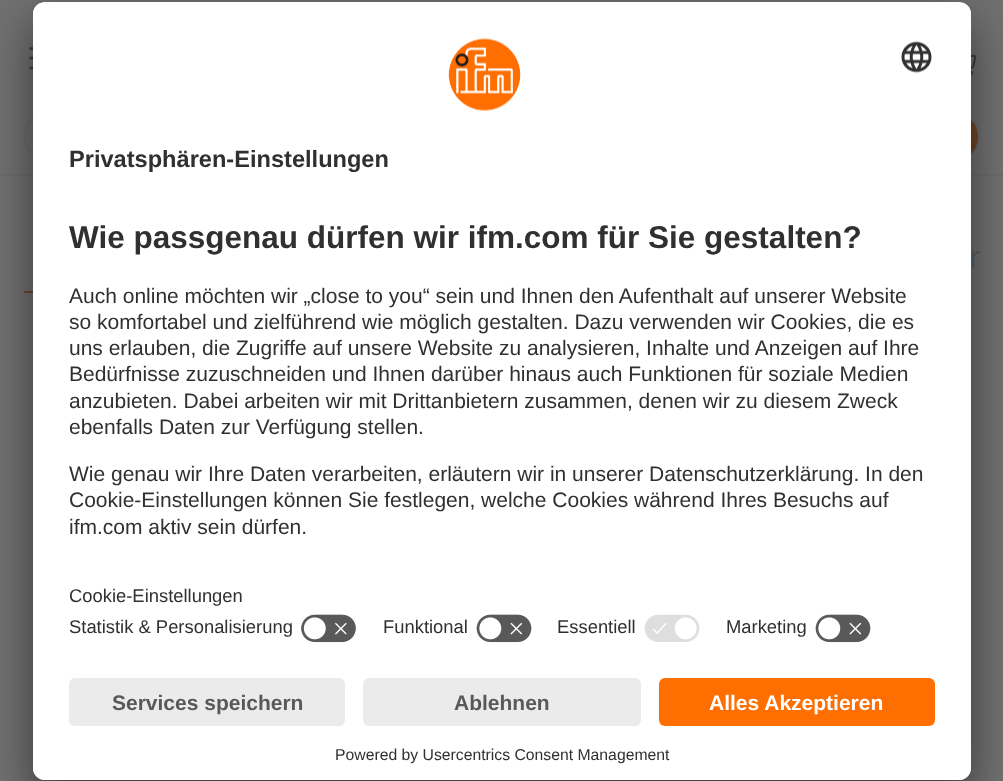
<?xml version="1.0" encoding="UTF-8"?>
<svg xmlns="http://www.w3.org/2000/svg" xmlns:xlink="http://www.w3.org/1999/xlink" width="1003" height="781">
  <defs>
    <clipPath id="clip1"><rect x="33" y="2" width="938" height="778" rx="12" /></clipPath>
    <clipPath id="clip2"><path d="M 45 2 h 914 c 6.5 0 12 5.5 12 12 v 652 h -938 v -652 c 0 -6.5 5.5 -12 12 -12 z" /></clipPath>
  </defs>
  <rect width="100%" height="100%" fill="#707070" />
  <rect y="174" width="1003" height="2" fill="#6b6b6b" />
  <path d="M 30.5 48.5 h 25.5 m -25.5 9.5 h 25.5 m -25.5 10 h 25.5" fill="none" stroke="#3e3e41" stroke-width="2.4" stroke-linecap="round" stroke-linejoin="round" />
  <image x="971" y="54" width="6" height="22" xlink:href="image1.png" />
  <rect x="25" y="112" width="954" height="49" rx="24.5" fill="none" stroke="#6b6b6b" stroke-width="2" />
  <path d="M 50 113 h 804 c 3.5 0 6 2.5 6 6 v 36 c 0 3.5 -2.5 6 -6 6 h -804 c -13.5 0 -24 -10.5 -24 -24 c 0 -13.5 10.5 -24 24 -24 z" fill="#707070" />
  <rect x="860" y="113" width="118" height="48" rx="24" fill="#704524" />
  <rect x="24" y="291" width="9" height="2" fill="#704524" />
  <rect x="33" y="32" width="938" height="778" rx="12" fill="#000000" fill-opacity="0.3" filter="blur(21px)" />
  <rect x="33" y="9" width="938" height="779" rx="12" fill="#000000" fill-opacity="0.22" filter="blur(19.5px)" />
  <text x="969" y="269" style="font-family: Liberation Sans; font-size: 34px; fill: #454d54">r</text>
  <rect x="33" y="2" width="938" height="778" rx="12" fill="#ffffff" />
  <g clip-path="url(#clip1)">
    <g clip-path="url(#clip2)">
      <rect x="33" y="3" width="938" height="663" fill="#ffffff" />
      <rect x="33" y="3" width="938" height="603" fill="#ffffff" />
    </g>
  </g>
  <image x="901" y="41" width="31" height="32" xlink:href="image3.png" />
  <image x="448" y="38" width="73" height="73" xlink:href="image2.png" />
  <image x="815" y="614" width="56" height="29" xlink:href="image5.png" />
  <image x="644" y="614" width="56" height="28" xlink:href="image6.png" />
  <image x="476" y="614" width="56" height="29" xlink:href="image5.png" />
  <image x="301" y="614" width="55" height="29" xlink:href="image4.png" />
  <text x="69" y="534" style="font-family: Liberation Sans; font-size: 21px; fill: #303030">ifm.com aktiv sein dürfen.</text>
  <text x="69" y="507" style="font-family: Liberation Sans; font-size: 21px; fill: #303030">Cookie-Einstellungen können Sie festlegen, welche Cookies während Ihres Besuchs auf</text>
  <text x="69" y="481" style="font-family: Liberation Sans; font-size: 21px; fill: #303030">Wie genau wir Ihre Daten verarbeiten, erläutern wir in unserer Datenschutzerklärung. In den</text>
  <text x="69" y="434" style="font-family: Liberation Sans; font-size: 21px; fill: #303030">ebenfalls Daten zur Verfügung stellen.</text>
  <text x="69" y="408" style="font-family: Liberation Sans; font-size: 21px; fill: #303030">anzubieten. Dabei arbeiten wir mit Drittanbietern zusammen, denen wir zu diesem Zweck</text>
  <text x="69" y="381" style="font-family: Liberation Sans; font-size: 21px; fill: #303030">Bedürfnisse zuzuschneiden und Ihnen darüber hinaus auch Funktionen für soziale Medien</text>
  <text x="69" y="355" style="font-family: Liberation Sans; font-size: 21px; fill: #303030">uns erlauben, die Zugriffe auf unsere Website zu analysieren, Inhalte und Anzeigen auf Ihre</text>
  <text x="69" y="329" style="font-family: Liberation Sans; font-size: 21px; fill: #303030">so komfortabel und zielführend wie möglich gestalten. Dazu verwenden wir Cookies, die es</text>
  <text x="69" y="303" style="font-family: Liberation Sans; font-size: 21px; fill: #303030">Auch online möchten wir „close to you“ sein und Ihnen den Aufenthalt auf unserer Website</text>
  <text x="69" y="248" style="font-family: Liberation Sans; font-size: 31.5px; font-weight: bold; fill: #303030">Wie passgenau dürfen wir ifm.com für Sie gestalten?</text>
  <text x="726" y="633" style="font-family: Liberation Sans; font-size: 18.4px; fill: #303030">Marketing</text>
  <text x="557" y="633" style="font-family: Liberation Sans; font-size: 18.4px; fill: #303030">Essentiell</text>
  <text x="383" y="633" style="font-family: Liberation Sans; font-size: 18.4px; fill: #303030">Funktional</text>
  <text x="69" y="633" style="font-family: Liberation Sans; font-size: 18.4px; fill: #303030">Statistik &amp; Personalisierung</text>
  <text x="69" y="602" style="font-family: Liberation Sans; font-size: 18.4px; fill: #303030">Cookie-Einstellungen</text>
  <text x="69" y="167" style="font-family: Liberation Sans; font-size: 23.6px; font-weight: bold; fill: #303030">Privatsphären-Einstellungen</text>
  <path d="M 33 666 h 938 v 102 c 0 6.5 -5.5 12 -12 12 h -914 c -6.5 0 -12 -5.5 -12 -12 z" fill="#ffffff" />
  <text x="335" y="760" style="font-family: Liberation Sans; font-size: 15.75px; fill: #303030">Powered by Usercentrics Consent Management</text>
  <rect x="659" y="678" width="276" height="48" rx="6" fill="#ff6e00" />
  <text x="709" y="710" style="font-family: Liberation Sans; font-size: 21px; font-weight: bold; fill: #ffffff">Alles Akzeptieren</text>
  <rect x="363" y="678" width="278" height="48" rx="6" fill="#ebebeb" />
  <text x="454" y="710" style="font-family: Liberation Sans; font-size: 21px; font-weight: bold; fill: #59595a">Ablehnen</text>
  <rect x="69" y="678" width="276" height="48" rx="6" fill="#ebebeb" />
  <text x="112" y="710" style="font-family: Liberation Sans; font-size: 21px; font-weight: bold; fill: #59595a">Services speichern</text>
</svg>
